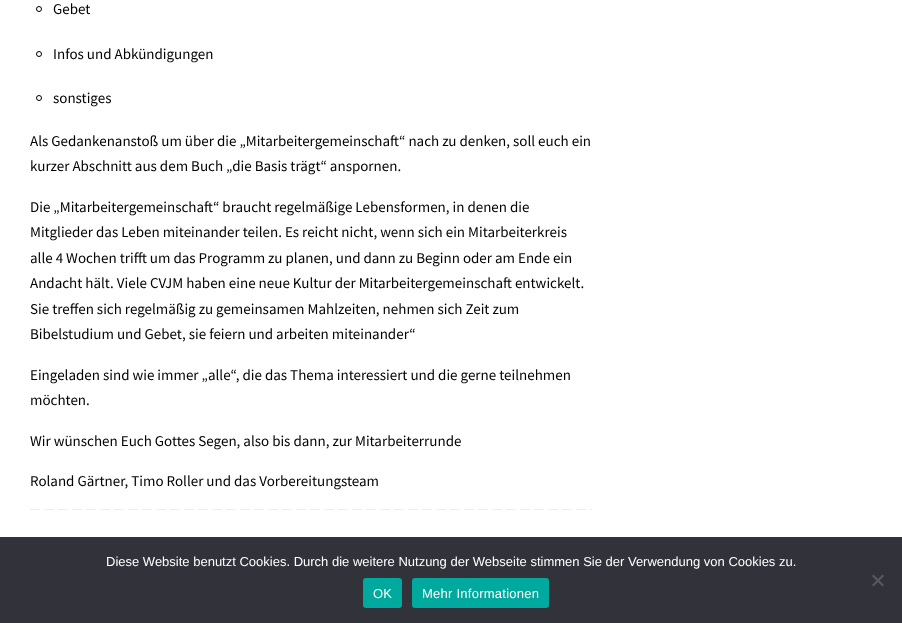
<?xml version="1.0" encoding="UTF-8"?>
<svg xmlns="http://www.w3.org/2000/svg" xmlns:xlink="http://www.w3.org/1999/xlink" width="902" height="623">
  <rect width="100%" height="100%" fill="#ffffff" />
  <circle cx="39" cy="9" r="2.5" fill="none" stroke="#000000" />
  <circle cx="39" cy="54" r="2.5" fill="none" stroke="#000000" />
  <circle cx="39" cy="98" r="2.5" fill="none" stroke="#000000" />
  <image x="30" y="509" width="562" height="1" xlink:href="image1.png" />
  <rect y="537" width="902" height="86" fill="#32323a" />
  <path d="M 882.5 574.5 l 1.5 1.5 l -10.5 10.5 l -1.5 -1.5 z" fill="#59595d" />
  <path d="M 872 576 l 1.5 -1.5 l 10.5 10.5 l -1.5 1.5 z" fill="#59595d" />
  <rect x="363" y="578" width="39" height="30" rx="3" fill="#00a99d" />
  <rect x="412" y="578" width="137" height="30" rx="3" fill="#00a99d" />
  <text x="53" y="14" style="font-family: Source Sans Pro; font-size: 15px; fill: #000000">Gebet</text>
  <text x="53" y="59" style="font-family: Source Sans Pro; font-size: 15px; fill: #000000">Infos und Abkündigungen</text>
  <text x="53" y="103" style="font-family: Source Sans Pro; font-size: 15px; fill: #000000">sonstiges</text>
  <text x="30" y="146" style="font-family: Source Sans Pro; font-size: 15px; fill: #000000">Als Gedankenanstoß um über die „Mitarbeitergemeinschaft“ nach zu denken, soll euch ein</text>
  <text x="30" y="171" style="font-family: Source Sans Pro; font-size: 15px; fill: #000000">kurzer Abschnitt aus dem Buch „die Basis trägt“ anspornen.</text>
  <text x="30" y="212" style="font-family: Source Sans Pro; font-size: 15px; fill: #000000">Die „Mitarbeitergemeinschaft“ braucht regelmäßige Lebensformen, in denen die</text>
  <text x="30" y="237" style="font-family: Source Sans Pro; font-size: 15px; fill: #000000">Mitglieder das Leben miteinander teilen. Es reicht nicht, wenn sich ein Mitarbeiterkreis</text>
  <text x="30" y="263" style="font-family: Source Sans Pro; font-size: 15px; fill: #000000">alle 4 Wochen trifft um das Programm zu planen, und dann zu Beginn oder am Ende ein</text>
  <text x="30" y="288" style="font-family: Source Sans Pro; font-size: 15px; fill: #000000">Andacht hält. Viele CVJM haben eine neue Kultur der Mitarbeitergemeinschaft entwickelt.</text>
  <text x="30" y="314" style="font-family: Source Sans Pro; font-size: 15px; fill: #000000">Sie treffen sich regelmäßig zu gemeinsamen Mahlzeiten, nehmen sich Zeit zum</text>
  <text x="30" y="339" style="font-family: Source Sans Pro; font-size: 15px; fill: #000000">Bibelstudium und Gebet, sie feiern und arbeiten miteinander“</text>
  <text x="30" y="380" style="font-family: Source Sans Pro; font-size: 15px; fill: #000000">Eingeladen sind wie immer „alle“, die das Thema interessiert und die gerne teilnehmen</text>
  <text x="30" y="405" style="font-family: Source Sans Pro; font-size: 15px; fill: #000000">möchten.</text>
  <text x="30" y="446" style="font-family: Source Sans Pro; font-size: 15px; fill: #000000">Wir wünschen Euch Gottes Segen, also bis dann, zur Mitarbeiterrunde</text>
  <text x="30" y="486" style="font-family: Source Sans Pro; font-size: 15px; fill: #000000">Roland Gärtner, Timo Roller und das Vorbereitungsteam</text>
  <text x="106" y="566" style="font-family: Liberation Sans; font-size: 13px; fill: #ffffff">Diese Website benutzt Cookies. Durch die weitere Nutzung der Webseite stimmen Sie der Verwendung von Cookies zu.</text>
  <text x="373" y="598" style="font-family: Liberation Sans; font-size: 13px; letter-spacing: 0.25px; fill: #ffffff">OK</text>
  <text x="422" y="598" style="font-family: Liberation Sans; font-size: 13px; letter-spacing: 0.25px; fill: #ffffff">Mehr Informationen</text>
</svg>
